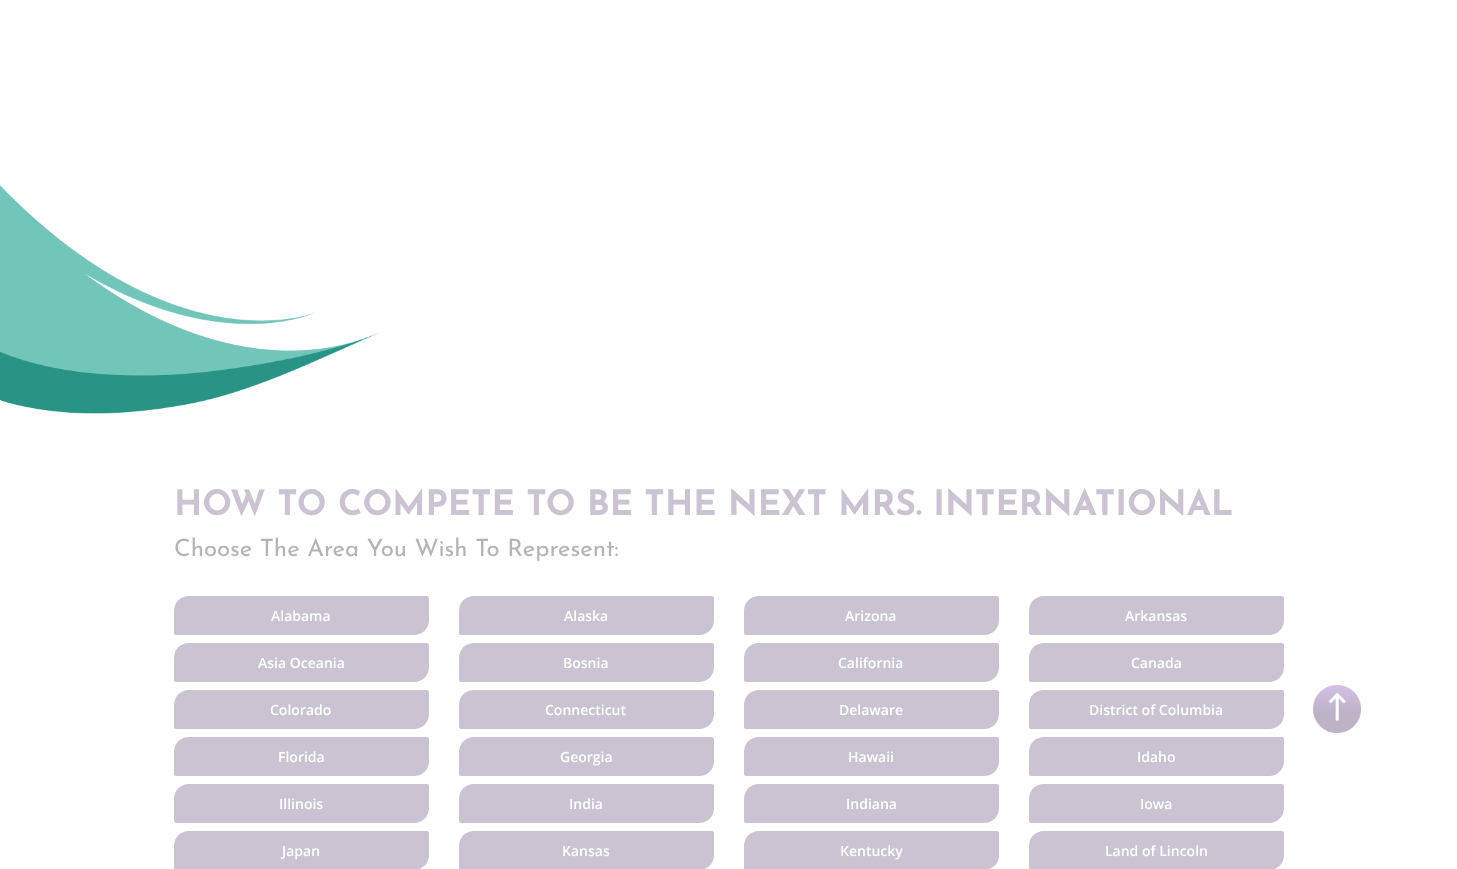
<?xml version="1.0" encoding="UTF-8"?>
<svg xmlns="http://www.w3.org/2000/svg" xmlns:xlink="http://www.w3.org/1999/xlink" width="1457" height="869">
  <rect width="100%" height="100%" fill="#ffffff" />
  <image x="0" y="185" width="379" height="229" xlink:href="image1.png" />
  <path d="M 189 596 h 238 c 1 0 2 1 2 2 v 22 c 0 8.5 -6.5 15 -15 15 h -238 c -1 0 -2 -1 -2 -2 v -22 c 0 -8.5 6.5 -15 15 -15 z" fill="#cbc2d2" />
  <path d="M 474 596 h 238 c 1 0 2 1 2 2 v 22 c 0 8.5 -6.5 15 -15 15 h -238 c -1 0 -2 -1 -2 -2 v -22 c 0 -8.5 6.5 -15 15 -15 z" fill="#cbc2d2" />
  <path d="M 759 596 h 238 c 1 0 2 1 2 2 v 22 c 0 8.5 -6.5 15 -15 15 h -238 c -1 0 -2 -1 -2 -2 v -22 c 0 -8.5 6.5 -15 15 -15 z" fill="#cbc2d2" />
  <path d="M 1044 596 h 238 c 1 0 2 1 2 2 v 22 c 0 8.5 -6.5 15 -15 15 h -238 c -1 0 -2 -1 -2 -2 v -22 c 0 -8.5 6.5 -15 15 -15 z" fill="#cbc2d2" />
  <path d="M 189 643 h 238 c 1 0 2 1 2 2 v 22 c 0 8.5 -6.5 15 -15 15 h -238 c -1 0 -2 -1 -2 -2 v -22 c 0 -8.5 6.5 -15 15 -15 z" fill="#cbc2d2" />
  <path d="M 474 643 h 238 c 1 0 2 1 2 2 v 22 c 0 8.5 -6.5 15 -15 15 h -238 c -1 0 -2 -1 -2 -2 v -22 c 0 -8.5 6.5 -15 15 -15 z" fill="#cbc2d2" />
  <path d="M 759 643 h 238 c 1 0 2 1 2 2 v 22 c 0 8.5 -6.5 15 -15 15 h -238 c -1 0 -2 -1 -2 -2 v -22 c 0 -8.5 6.5 -15 15 -15 z" fill="#cbc2d2" />
  <path d="M 1044 643 h 238 c 1 0 2 1 2 2 v 22 c 0 8.5 -6.5 15 -15 15 h -238 c -1 0 -2 -1 -2 -2 v -22 c 0 -8.5 6.5 -15 15 -15 z" fill="#cbc2d2" />
  <path d="M 189 690 h 238 c 1 0 2 1 2 2 v 22 c 0 8.5 -6.5 15 -15 15 h -238 c -1 0 -2 -1 -2 -2 v -22 c 0 -8.5 6.5 -15 15 -15 z" fill="#cbc2d2" />
  <path d="M 474 690 h 238 c 1 0 2 1 2 2 v 22 c 0 8.5 -6.5 15 -15 15 h -238 c -1 0 -2 -1 -2 -2 v -22 c 0 -8.5 6.5 -15 15 -15 z" fill="#cbc2d2" />
  <path d="M 759 690 h 238 c 1 0 2 1 2 2 v 22 c 0 8.5 -6.5 15 -15 15 h -238 c -1 0 -2 -1 -2 -2 v -22 c 0 -8.5 6.5 -15 15 -15 z" fill="#cbc2d2" />
  <path d="M 1044 690 h 238 c 1 0 2 1 2 2 v 22 c 0 8.5 -6.5 15 -15 15 h -238 c -1 0 -2 -1 -2 -2 v -22 c 0 -8.5 6.5 -15 15 -15 z" fill="#cbc2d2" />
  <path d="M 189 737 h 238 c 1 0 2 1 2 2 v 22 c 0 8.5 -6.5 15 -15 15 h -238 c -1 0 -2 -1 -2 -2 v -22 c 0 -8.5 6.5 -15 15 -15 z" fill="#cbc2d2" />
  <path d="M 474 737 h 238 c 1 0 2 1 2 2 v 22 c 0 8.5 -6.5 15 -15 15 h -238 c -1 0 -2 -1 -2 -2 v -22 c 0 -8.5 6.5 -15 15 -15 z" fill="#cbc2d2" />
  <path d="M 759 737 h 238 c 1 0 2 1 2 2 v 22 c 0 8.5 -6.5 15 -15 15 h -238 c -1 0 -2 -1 -2 -2 v -22 c 0 -8.5 6.5 -15 15 -15 z" fill="#cbc2d2" />
  <path d="M 1044 737 h 238 c 1 0 2 1 2 2 v 22 c 0 8.5 -6.5 15 -15 15 h -238 c -1 0 -2 -1 -2 -2 v -22 c 0 -8.5 6.5 -15 15 -15 z" fill="#cbc2d2" />
  <path d="M 189 784 h 238 c 1 0 2 1 2 2 v 22 c 0 8.5 -6.5 15 -15 15 h -238 c -1 0 -2 -1 -2 -2 v -22 c 0 -8.5 6.5 -15 15 -15 z" fill="#cbc2d2" />
  <path d="M 474 784 h 238 c 1 0 2 1 2 2 v 22 c 0 8.5 -6.5 15 -15 15 h -238 c -1 0 -2 -1 -2 -2 v -22 c 0 -8.5 6.5 -15 15 -15 z" fill="#cbc2d2" />
  <path d="M 759 784 h 238 c 1 0 2 1 2 2 v 22 c 0 8.5 -6.5 15 -15 15 h -238 c -1 0 -2 -1 -2 -2 v -22 c 0 -8.5 6.5 -15 15 -15 z" fill="#cbc2d2" />
  <path d="M 1044 784 h 238 c 1 0 2 1 2 2 v 22 c 0 8.5 -6.5 15 -15 15 h -238 c -1 0 -2 -1 -2 -2 v -22 c 0 -8.5 6.5 -15 15 -15 z" fill="#cbc2d2" />
  <path d="M 189 831 h 238 c 1 0 2 1 2 2 v 22 c 0 8.5 -6.5 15 -15 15 h -238 c -1 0 -2 -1 -2 -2 v -22 c 0 -8.5 6.5 -15 15 -15 z" fill="#cbc2d2" />
  <path d="M 474 831 h 238 c 1 0 2 1 2 2 v 22 c 0 8.5 -6.5 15 -15 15 h -238 c -1 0 -2 -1 -2 -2 v -22 c 0 -8.5 6.5 -15 15 -15 z" fill="#cbc2d2" />
  <path d="M 759 831 h 238 c 1 0 2 1 2 2 v 22 c 0 8.5 -6.5 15 -15 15 h -238 c -1 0 -2 -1 -2 -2 v -22 c 0 -8.5 6.5 -15 15 -15 z" fill="#cbc2d2" />
  <path d="M 1044 831 h 238 c 1 0 2 1 2 2 v 22 c 0 8.5 -6.5 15 -15 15 h -238 c -1 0 -2 -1 -2 -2 v -22 c 0 -8.5 6.5 -15 15 -15 z" fill="#cbc2d2" />
  <image x="1313" y="685" width="48" height="48" xlink:href="image2.png" />
  <text x="174" y="515" style="font-family: Josefin Sans; font-size: 35px; font-weight: bold; fill: #cbc2d2">HOW TO COMPETE TO BE THE NEXT MRS. INTERNATIONAL</text>
  <text x="174" y="556" style="font-family: Josefin Sans; font-size: 24px; fill: #b4b4b4">Choose The Area You Wish To Represent:</text>
  <text x="271" y="621" style="font-family: Open Sans; font-size: 14px; font-weight: 600; fill: #ffffff">Alabama</text>
  <text x="564" y="621" style="font-family: Open Sans; font-size: 14px; font-weight: 600; fill: #ffffff">Alaska</text>
  <text x="845" y="621" style="font-family: Open Sans; font-size: 14px; font-weight: 600; fill: #ffffff">Arizona</text>
  <text x="1125" y="621" style="font-family: Open Sans; font-size: 14px; font-weight: 600; fill: #ffffff">Arkansas</text>
  <text x="258" y="668" style="font-family: Open Sans; font-size: 14px; font-weight: 600; fill: #ffffff">Asia Oceania</text>
  <text x="563" y="668" style="font-family: Open Sans; font-size: 14px; font-weight: 600; fill: #ffffff">Bosnia</text>
  <text x="838" y="668" style="font-family: Open Sans; font-size: 14px; font-weight: 600; fill: #ffffff">California</text>
  <text x="1131" y="668" style="font-family: Open Sans; font-size: 14px; font-weight: 600; fill: #ffffff">Canada</text>
  <text x="270" y="715" style="font-family: Open Sans; font-size: 14px; font-weight: 600; fill: #ffffff">Colorado</text>
  <text x="545" y="715" style="font-family: Open Sans; font-size: 14px; font-weight: 600; fill: #ffffff">Connecticut</text>
  <text x="839" y="715" style="font-family: Open Sans; font-size: 14px; font-weight: 600; fill: #ffffff">Delaware</text>
  <text x="1089" y="715" style="font-family: Open Sans; font-size: 14px; font-weight: 600; fill: #ffffff">District of Columbia</text>
  <text x="278" y="762" style="font-family: Open Sans; font-size: 14px; font-weight: 600; fill: #ffffff">Florida</text>
  <text x="560" y="762" style="font-family: Open Sans; font-size: 14px; font-weight: 600; fill: #ffffff">Georgia</text>
  <text x="848" y="762" style="font-family: Open Sans; font-size: 14px; font-weight: 600; fill: #ffffff">Hawaii</text>
  <text x="1137" y="762" style="font-family: Open Sans; font-size: 14px; font-weight: 600; fill: #ffffff">Idaho</text>
  <text x="279" y="809" style="font-family: Open Sans; font-size: 14px; font-weight: 600; fill: #ffffff">Illinois</text>
  <text x="569" y="809" style="font-family: Open Sans; font-size: 14px; font-weight: 600; fill: #ffffff">India</text>
  <text x="846" y="809" style="font-family: Open Sans; font-size: 14px; font-weight: 600; fill: #ffffff">Indiana</text>
  <text x="1140" y="809" style="font-family: Open Sans; font-size: 14px; font-weight: 600; fill: #ffffff">Iowa</text>
  <text x="282" y="856" style="font-family: Open Sans; font-size: 14px; font-weight: 600; fill: #ffffff">Japan</text>
  <text x="562" y="856" style="font-family: Open Sans; font-size: 14px; font-weight: 600; fill: #ffffff">Kansas</text>
  <text x="840" y="856" style="font-family: Open Sans; font-size: 14px; font-weight: 600; fill: #ffffff">Kentucky</text>
  <text x="1105" y="856" style="font-family: Open Sans; font-size: 14px; font-weight: 600; fill: #ffffff">Land of Lincoln</text>
</svg>
